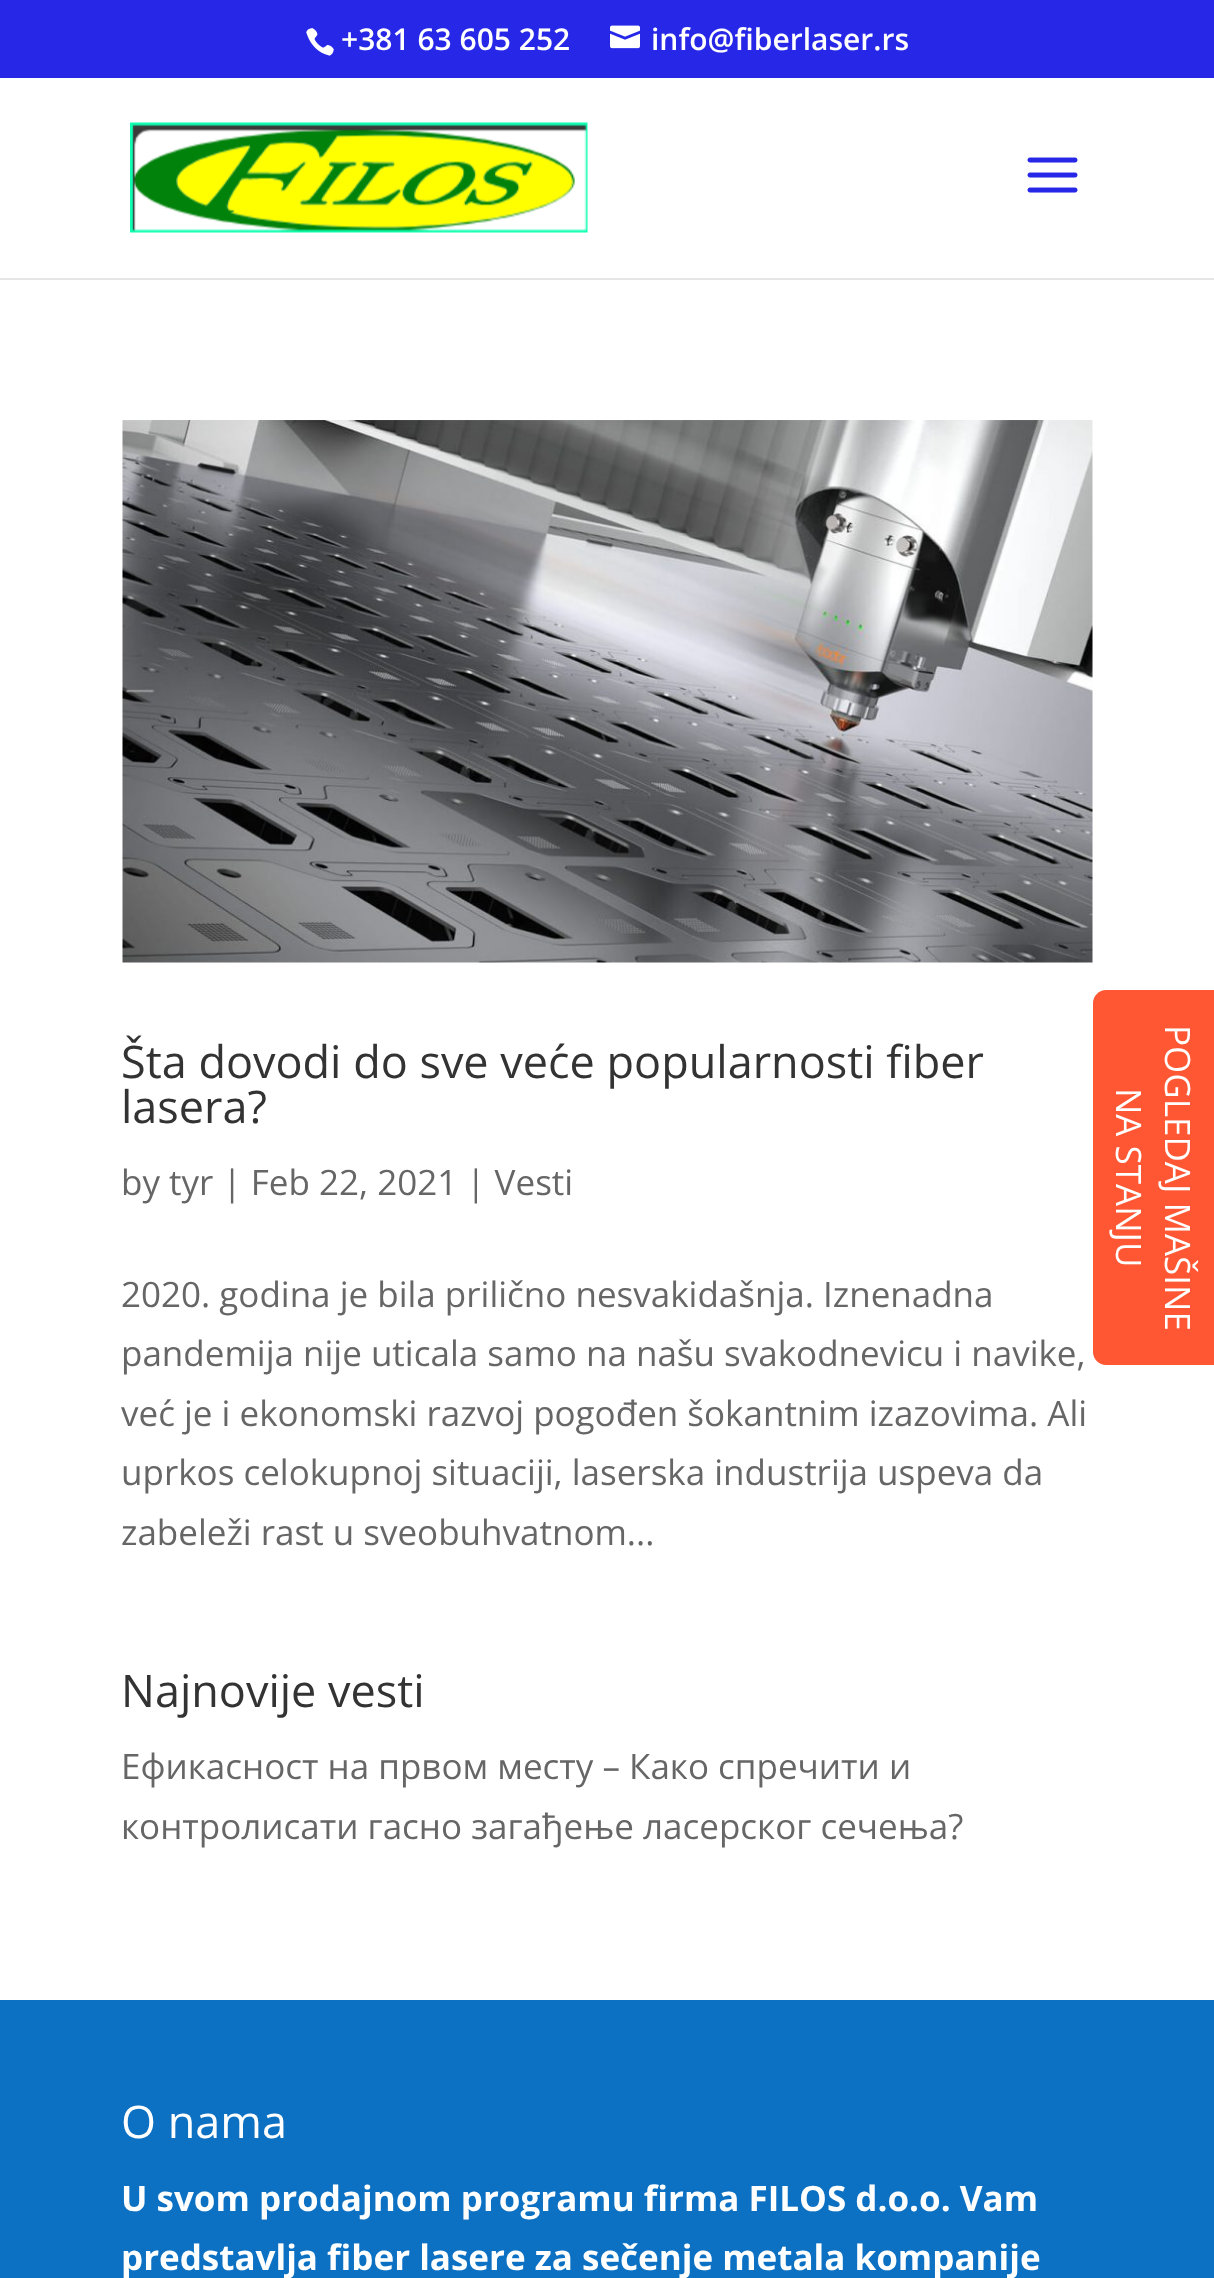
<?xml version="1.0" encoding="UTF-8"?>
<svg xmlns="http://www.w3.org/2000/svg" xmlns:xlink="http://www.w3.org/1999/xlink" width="1214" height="2278">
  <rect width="100%" height="100%" fill="#ffffff" />
  <rect width="1214" height="78" fill="#2727e8" />
  <image x="306" y="28" width="28" height="28" xlink:href="image1.png" />
  <image x="610" y="25" width="30" height="24" xlink:href="image2.png" />
  <rect y="278" width="1214" height="2" fill="#e6e6e6" />
  <image x="130" y="122" width="458" height="111" xlink:href="image3.png" />
  <image x="1027" y="157" width="51" height="36" xlink:href="image4.png" />
  <image x="122" y="420" width="971" height="543" xlink:href="image5.png" />
  <rect y="2000" width="1214" height="278" fill="#0c71c3" />
  <path d="M 1106 990 h 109 v 375 h -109 c -7 0 -13 -6 -13 -13 v -349 c 0 -7 6 -13 13 -13 z" fill="#ff5733" />
  <text x="341" y="50" style="font-family: Open Sans; font-size: 30px; font-weight: 600; fill: #ffffff">+381 63 605 252</text>
  <text x="651" y="50" style="font-family: Open Sans; font-size: 30px; font-weight: 600; fill: #ffffff">info@fiberlaser.rs</text>
  <text x="121" y="1078" style="font-family: Open Sans; font-size: 45px; fill: #333333">Šta dovodi do sve veće popularnosti fiber</text>
  <text x="121" y="1123" style="font-family: Open Sans; font-size: 45px; fill: #333333">lasera?</text>
  <text x="121" y="1195" style="font-family: Open Sans; font-size: 35px; fill: #666666">by tyr | Feb 22, 2021 | Vesti</text>
  <text x="121" y="1307" style="font-family: Open Sans; font-size: 35px; fill: #666666">2020. godina je bila prilično nesvakidašnja. Iznenadna</text>
  <text x="121" y="1366" style="font-family: Open Sans; font-size: 35px; fill: #666666">pandemija nije uticala samo na našu svakodnevicu i navike,</text>
  <text x="121" y="1426" style="font-family: Open Sans; font-size: 35px; fill: #666666">već je i ekonomski razvoj pogođen šokantnim izazovima. Ali</text>
  <text x="121" y="1485" style="font-family: Open Sans; font-size: 35px; fill: #666666">uprkos celokupnoj situaciji, laserska industrija uspeva da</text>
  <text x="121" y="1545" style="font-family: Open Sans; font-size: 35px; fill: #666666">zabeleži rast u sveobuhvatnom...</text>
  <text x="121" y="1707" style="font-family: Open Sans; font-size: 45px; fill: #333333">Najnovije vesti</text>
  <text x="121" y="1779" style="font-family: Open Sans; font-size: 35px; fill: #666666">Ефикасност на првом месту – Како спречити и</text>
  <text x="121" y="1839" style="font-family: Open Sans; font-size: 35px; fill: #666666">контролисати гасно загађење ласерског сечења?</text>
  <text x="121" y="2138" style="font-family: Open Sans; font-size: 45px; fill: #ffffff">O nama</text>
  <text x="121" y="2211" style="font-family: Open Sans; font-size: 35px; font-weight: bold; fill: #ffffff">U svom prodajnom programu firma FILOS d.o.o. Vam</text>
  <text x="121" y="2270" style="font-family: Open Sans; font-size: 35px; font-weight: bold; fill: #ffffff">predstavlja fiber lasere za sečenje metala kompanije</text>
  <text x="1116" y="1088" transform="rotate(90 1116 1088)" style="font-family: Open Sans; font-size: 35px; fill: #ffffff">NA STANJU</text>
  <text x="1165" y="1025" transform="rotate(90 1165 1025)" style="font-family: Open Sans; font-size: 35px; fill: #ffffff">POGLEDAJ MAŠINE</text>
</svg>
